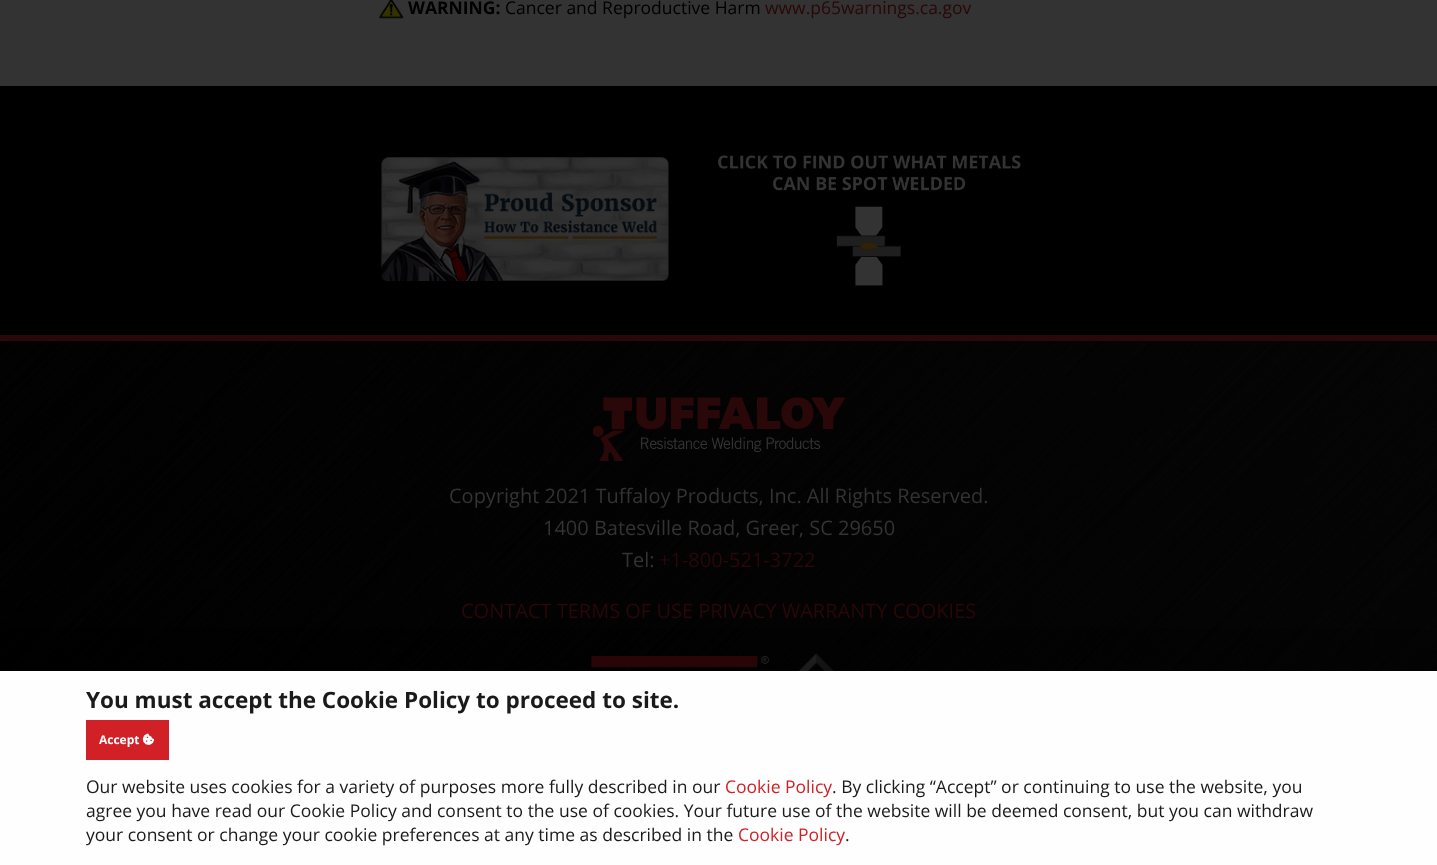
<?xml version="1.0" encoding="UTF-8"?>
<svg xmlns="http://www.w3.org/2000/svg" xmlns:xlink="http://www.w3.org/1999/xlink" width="1437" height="865">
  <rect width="100%" height="100%" fill="#333333" />
  <image x="378" y="0" width="26" height="19" xlink:href="image1.png" />
  <rect y="86" width="1437" height="249" fill="#000000" />
  <image x="381" y="157" width="288" height="124" xlink:href="image2.png" />
  <image x="718" y="155" width="303" height="131" xlink:href="image3.png" />
  <image x="0" y="341" width="1437" height="330" xlink:href="image4.png" />
  <rect y="335" width="1437" height="6" fill="#2a0708" />
  <image x="593" y="397" width="253" height="64" xlink:href="image5.png" />
  <image x="590" y="656" width="179" height="12" xlink:href="image6.png" />
  <image x="798" y="653" width="36" height="18" xlink:href="image7.png" />
  <rect y="671" width="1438" height="194" fill="#000000" fill-opacity="0.4" filter="blur(19px)" />
  <rect y="671" width="1437" height="194" fill="#fefefe" />
  <rect x="86" y="720" width="83" height="40" fill="#d12127" />
  <image x="142" y="733" width="13" height="12" xlink:href="image8.png" />
  <text x="408" y="14" style="font-family: Open Sans; font-size: 17.5px; font-weight: bold; fill: #000000">WARNING:</text>
  <text x="505" y="14" style="font-family: Open Sans; font-size: 17.5px; fill: #000000">Cancer and Reproductive Harm</text>
  <text x="765" y="14" style="font-family: Open Sans; font-size: 17.5px; fill: #2a0708">www.p65warnings.ca.gov</text>
  <text x="449" y="503" style="font-family: Open Sans; font-size: 20px; fill: #333333">Copyright 2021 Tuffaloy Products, Inc. All Rights Reserved.</text>
  <text x="543" y="535" style="font-family: Open Sans; font-size: 20px; fill: #333333">1400 Batesville Road, Greer, SC 29650</text>
  <text x="622" y="567" style="font-family: Open Sans; font-size: 20px; fill: #333333">Tel:</text>
  <text x="659" y="567" style="font-family: Open Sans; font-size: 20px; fill: #2a0708">+1-800-521-3722</text>
  <text x="461" y="618" style="font-family: Open Sans; font-size: 20px; fill: #2a0708">CONTACT TERMS OF USE PRIVACY WARRANTY COOKIES</text>
  <text x="86" y="708" style="font-family: Open Sans; font-size: 22.5px; font-weight: bold; fill: #1a1a1a">You must accept the Cookie Policy to proceed to site.</text>
  <text x="99" y="744" style="font-family: Open Sans; font-size: 12px; font-weight: bold; fill: #ffffff">Accept</text>
  <text x="86" y="793" style="font-family: Open Sans; font-size: 17.5px; fill: #1a1a1a">Our website uses cookies for a variety of purposes more fully described in our</text>
  <text x="725" y="793" style="font-family: Open Sans; font-size: 17.5px; fill: #d12127">Cookie Policy</text>
  <text x="832" y="793" style="font-family: Open Sans; font-size: 17.5px; fill: #1a1a1a">. By clicking “Accept” or continuing to use the website, you</text>
  <text x="86" y="817" style="font-family: Open Sans; font-size: 17.5px; fill: #1a1a1a">agree you have read our Cookie Policy and consent to the use of cookies. Your future use of the website will be deemed consent, but you can withdraw</text>
  <text x="86" y="841" style="font-family: Open Sans; font-size: 17.5px; fill: #1a1a1a">your consent or change your cookie preferences at any time as described in the</text>
  <text x="738" y="841" style="font-family: Open Sans; font-size: 17.5px; fill: #d12127">Cookie Policy</text>
  <text x="845" y="841" style="font-family: Open Sans; font-size: 17.5px; fill: #1a1a1a">.</text>
</svg>
